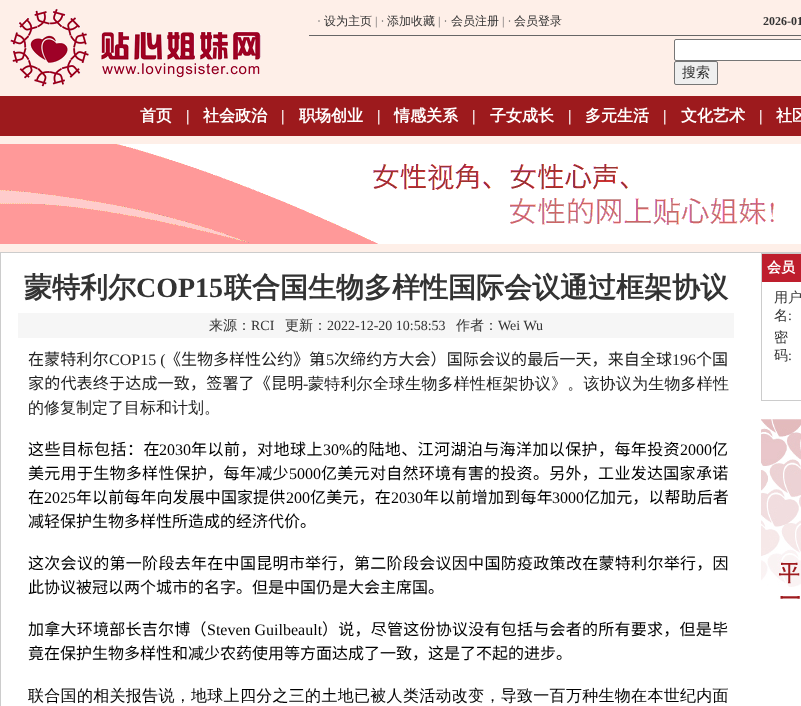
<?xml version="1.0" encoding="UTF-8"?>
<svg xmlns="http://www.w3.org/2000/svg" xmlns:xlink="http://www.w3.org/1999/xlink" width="801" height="706">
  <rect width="100%" height="100%" fill="#feefe8" />
  <image x="10" y="8" width="251" height="79" xlink:href="image1.png" />
  <rect x="309" y="35" width="492" height="1" fill="#666666" />
  <rect x="674.5" y="39.5" width="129" height="21" rx="1.5" fill="#ffffff" stroke="#767676" />
  <rect x="674.5" y="61.5" width="43" height="23" rx="1.5" fill="#efefef" stroke="#767676" />
  <rect y="96" width="801" height="40" fill="#9d1a1d" />
  <image x="0" y="144" width="801" height="100" xlink:href="image2.png" />
  <rect x="1" y="253" width="800" height="453" fill="#ffffff" />
  <rect y="252" width="801" height="1" fill="#cccccc" />
  <rect y="252" width="1" height="454" fill="#cccccc" />
  <rect x="18" y="313" width="716" height="25" fill="#f6f6f6" />
  <rect x="761" y="253" width="40" height="1" fill="#cccccc" />
  <rect x="761" y="400" width="40" height="1" fill="#cccccc" />
  <rect x="761" y="253" width="1" height="148" fill="#cccccc" />
  <rect x="762" y="254" width="39" height="28" fill="#be1e2d" />
  <image x="761" y="419" width="40" height="180" xlink:href="image3.png" />
  <text x="317" y="25" style="font-family: Liberation Serif; font-size: 12px; fill: #666666">·</text>
  <text x="324" y="25" style="font-family: WenQuanYi Zen Hei; font-size: 12px; font-weight: 500; fill: #333333">设为主页</text>
  <text x="375" y="25" style="font-family: Liberation Serif; font-size: 12px; fill: #666666">| ·</text>
  <text x="387" y="25" style="font-family: WenQuanYi Zen Hei; font-size: 12px; font-weight: 500; fill: #333333">添加收藏</text>
  <text x="438" y="25" style="font-family: Liberation Serif; font-size: 12px; fill: #666666">| ·</text>
  <text x="451" y="25" style="font-family: WenQuanYi Zen Hei; font-size: 12px; font-weight: 500; fill: #333333">会员注册</text>
  <text x="502" y="25" style="font-family: Liberation Serif; font-size: 12px; fill: #666666">| ·</text>
  <text x="514" y="25" style="font-family: WenQuanYi Zen Hei; font-size: 12px; font-weight: 500; fill: #333333">会员登录</text>
  <text x="763" y="25" style="font-family: Liberation Serif; font-size: 12px; font-weight: bold; fill: #333333">2026-01</text>
  <text x="682" y="77" style="font-family: WenQuanYi Zen Hei; font-size: 14px; font-weight: 500; fill: #333333">搜索</text>
  <text x="140" y="121" style="font-family: WenQuanYi Zen Hei; font-size: 16px; font-weight: bold; fill: #ffffff">首页</text>
  <text x="186" y="121" style="font-family: Liberation Serif; font-size: 16px; font-weight: bold; fill: #ffffff">|</text>
  <text x="203" y="121" style="font-family: WenQuanYi Zen Hei; font-size: 16px; font-weight: bold; fill: #ffffff">社会政治</text>
  <text x="281" y="121" style="font-family: Liberation Serif; font-size: 16px; font-weight: bold; fill: #ffffff">|</text>
  <text x="299" y="121" style="font-family: WenQuanYi Zen Hei; font-size: 16px; font-weight: bold; fill: #ffffff">职场创业</text>
  <text x="377" y="121" style="font-family: Liberation Serif; font-size: 16px; font-weight: bold; fill: #ffffff">|</text>
  <text x="394" y="121" style="font-family: WenQuanYi Zen Hei; font-size: 16px; font-weight: bold; fill: #ffffff">情感关系</text>
  <text x="472" y="121" style="font-family: Liberation Serif; font-size: 16px; font-weight: bold; fill: #ffffff">|</text>
  <text x="490" y="121" style="font-family: WenQuanYi Zen Hei; font-size: 16px; font-weight: bold; fill: #ffffff">子女成长</text>
  <text x="568" y="121" style="font-family: Liberation Serif; font-size: 16px; font-weight: bold; fill: #ffffff">|</text>
  <text x="585" y="121" style="font-family: WenQuanYi Zen Hei; font-size: 16px; font-weight: bold; fill: #ffffff">多元生活</text>
  <text x="663" y="121" style="font-family: Liberation Serif; font-size: 16px; font-weight: bold; fill: #ffffff">|</text>
  <text x="681" y="121" style="font-family: WenQuanYi Zen Hei; font-size: 16px; font-weight: bold; fill: #ffffff">文化艺术</text>
  <text x="759" y="121" style="font-family: Liberation Serif; font-size: 16px; font-weight: bold; fill: #ffffff">|</text>
  <text x="776" y="121" style="font-family: WenQuanYi Zen Hei; font-size: 16px; font-weight: bold; fill: #ffffff">社区</text>
  <text x="24" y="297" style="font-family: WenQuanYi Zen Hei; font-size: 28px; font-weight: bold; fill: #333333">蒙特利尔</text>
  <text x="136" y="297" style="font-family: Liberation Serif; font-size: 28px; font-weight: bold; fill: #333333">COP15</text>
  <text x="224" y="297" style="font-family: WenQuanYi Zen Hei; font-size: 28px; font-weight: bold; fill: #333333">联合国生物多样性国际会议通过框架协议</text>
  <text x="209" y="330" style="font-family: WenQuanYi Zen Hei; font-size: 14px; font-weight: 500; fill: #333333">来源：</text>
  <text x="251" y="330" style="font-family: Liberation Serif; font-size: 14px; fill: #333333">RCI</text>
  <text x="285" y="330" style="font-family: WenQuanYi Zen Hei; font-size: 14px; font-weight: 500; fill: #333333">更新：</text>
  <text x="327" y="330" style="font-family: Liberation Serif; font-size: 14px; fill: #333333">2022-12-20 10:58:53</text>
  <text x="456" y="330" style="font-family: WenQuanYi Zen Hei; font-size: 14px; font-weight: 500; fill: #333333">作者：</text>
  <text x="498" y="330" style="font-family: Liberation Serif; font-size: 14px; fill: #333333">Wei Wu</text>
  <text x="28" y="365" style="font-family: Noto Sans CJK SC; font-size: 16px; letter-spacing: 0.1px; fill: #222222">在蒙特利尔</text>
  <text x="109" y="365" style="font-family: Liberation Serif; font-size: 16px; fill: #222222">COP15 (</text>
  <text x="165" y="365" style="font-family: Noto Sans CJK SC; font-size: 16px; fill: #222222">《生物多样性公约》第</text>
  <text x="318" y="365" style="font-family: Liberation Serif; font-size: 16px; fill: #222222">15</text>
  <text x="334" y="365" style="font-family: Noto Sans CJK SC; font-size: 16px; letter-spacing: 0.1px; fill: #222222">次缔约方大会）国际会议的最后一天，来自全球</text>
  <text x="672" y="365" style="font-family: Liberation Serif; font-size: 16px; fill: #222222">196</text>
  <text x="696" y="365" style="font-family: Noto Sans CJK SC; font-size: 16px; fill: #222222">个国</text>
  <text x="28" y="389" style="font-family: Noto Sans CJK SC; font-size: 16px; letter-spacing: 0.2px; fill: #222222">家的代表终于达成一致，签署了《昆明</text>
  <text x="303" y="389" style="font-family: Liberation Serif; font-size: 16px; fill: #222222">-</text>
  <text x="308" y="389" style="font-family: WenQuanYi Zen Hei; font-size: 16px; font-weight: 500; letter-spacing: 0.2px; fill: #222222">蒙特利尔全球生物多样性框架协议》。该协议为生物多样性</text>
  <text x="28" y="413" style="font-family: WenQuanYi Zen Hei; font-size: 16px; font-weight: 500; fill: #222222">的修复制定了目标和计划。</text>
  <text x="28" y="455" style="font-family: Noto Sans CJK SC; font-size: 16px; letter-spacing: 0.5px; fill: #000000">这些目标包括：在</text>
  <text x="159" y="455" style="font-family: Liberation Serif; font-size: 16px; fill: #000000">2030</text>
  <text x="191" y="455" style="font-family: Noto Sans CJK SC; font-size: 16px; letter-spacing: 0.5px; fill: #000000">年以前，对地球上</text>
  <text x="323" y="455" style="font-family: Liberation Serif; font-size: 16px; fill: #000000">30%</text>
  <text x="352" y="455" style="font-family: Noto Sans CJK SC; font-size: 16px; letter-spacing: 0.4px; fill: #000000">的陆地、江河湖泊与海洋加以保护，每年投资</text>
  <text x="680" y="455" style="font-family: Liberation Serif; font-size: 16px; fill: #000000">2000</text>
  <text x="712" y="455" style="font-family: Noto Sans CJK SC; font-size: 16px; fill: #000000">亿</text>
  <text x="28" y="479" style="font-family: Noto Sans CJK SC; font-size: 16px; letter-spacing: 0.3px; fill: #000000">美元用于生物多样性保护，每年减少</text>
  <text x="289" y="479" style="font-family: Liberation Serif; font-size: 16px; fill: #000000">5000</text>
  <text x="321" y="479" style="font-family: Noto Sans CJK SC; font-size: 16px; letter-spacing: 0.3px; fill: #000000">亿美元对自然环境有害的投资。另外，工业发达国家承诺</text>
  <text x="28" y="503" style="font-family: Noto Sans CJK SC; font-size: 16px; fill: #000000">在</text>
  <text x="44" y="503" style="font-family: Liberation Serif; font-size: 16px; fill: #000000">2025</text>
  <text x="76" y="503" style="font-family: Noto Sans CJK SC; font-size: 16px; letter-spacing: 0.1px; fill: #000000">年以前每年向发展中国家提供</text>
  <text x="286" y="503" style="font-family: Liberation Serif; font-size: 16px; fill: #000000">200</text>
  <text x="310" y="503" style="font-family: Noto Sans CJK SC; font-size: 16px; letter-spacing: 0.2px; fill: #000000">亿美元，在</text>
  <text x="391" y="503" style="font-family: Liberation Serif; font-size: 16px; fill: #000000">2030</text>
  <text x="423" y="503" style="font-family: Noto Sans CJK SC; font-size: 16px; letter-spacing: 0.25px; fill: #000000">年以前增加到每年</text>
  <text x="552" y="503" style="font-family: Liberation Serif; font-size: 16px; fill: #000000">3000</text>
  <text x="584" y="503" style="font-family: Noto Sans CJK SC; font-size: 16px; letter-spacing: 0.1px; fill: #000000">亿加元，以帮助后者</text>
  <text x="28" y="527" style="font-family: Noto Sans CJK SC; font-size: 16px; fill: #000000">减轻保护生物多样性所造成的经济代价。</text>
  <text x="28" y="569" style="font-family: Noto Sans CJK SC; font-size: 16px; letter-spacing: 0.3px; fill: #000000">这次会议的第一阶段去年在中国昆明市举行，第二阶段会议因中国防疫政策改在蒙特利尔举行，因</text>
  <text x="28" y="593" style="font-family: Noto Sans CJK SC; font-size: 16px; fill: #000000">此协议被冠以两个城市的名字。但是中国仍是大会主席国。</text>
  <text x="28" y="635" style="font-family: Noto Sans CJK SC; font-size: 16px; letter-spacing: 0.25px; fill: #000000">加拿大环境部长吉尔博（</text>
  <text x="207" y="635" style="font-family: Liberation Serif; font-size: 16px; fill: #000000">Steven Guilbeault</text>
  <text x="322" y="635" style="font-family: Noto Sans CJK SC; font-size: 16px; letter-spacing: 0.25px; fill: #000000">）说，尽管这份协议没有包括与会者的所有要求，但是毕</text>
  <text x="28" y="659" style="font-family: Noto Sans CJK SC; font-size: 16px; fill: #000000">竟在保护生物多样性和减少农药使用等方面达成了一致，这是了不起的进步。</text>
  <text x="28" y="701" style="font-family: WenQuanYi Zen Hei; font-size: 16px; font-weight: 500; letter-spacing: 0.3px; fill: #000000">联合国的相关报告说，地球上四分之三的土地已被人类活动改变，导致一百万种生物在本世纪内面</text>
  <text x="767" y="272" style="font-family: WenQuanYi Zen Hei; font-size: 14px; font-weight: bold; fill: #ffffff">会员</text>
  <text x="774" y="302" style="font-family: WenQuanYi Zen Hei; font-size: 14px; font-weight: 500; fill: #333333">用户</text>
  <text x="774" y="320" style="font-family: WenQuanYi Zen Hei; font-size: 14px; font-weight: 500; fill: #333333">名</text>
  <text x="788" y="320" style="font-family: Liberation Serif; font-size: 14px; fill: #333333">:</text>
  <text x="774" y="342" style="font-family: WenQuanYi Zen Hei; font-size: 14px; font-weight: 500; fill: #333333">密</text>
  <text x="774" y="360" style="font-family: WenQuanYi Zen Hei; font-size: 14px; font-weight: 500; fill: #333333">码</text>
  <text x="788" y="360" style="font-family: Liberation Serif; font-size: 14px; fill: #333333">:</text>
</svg>
